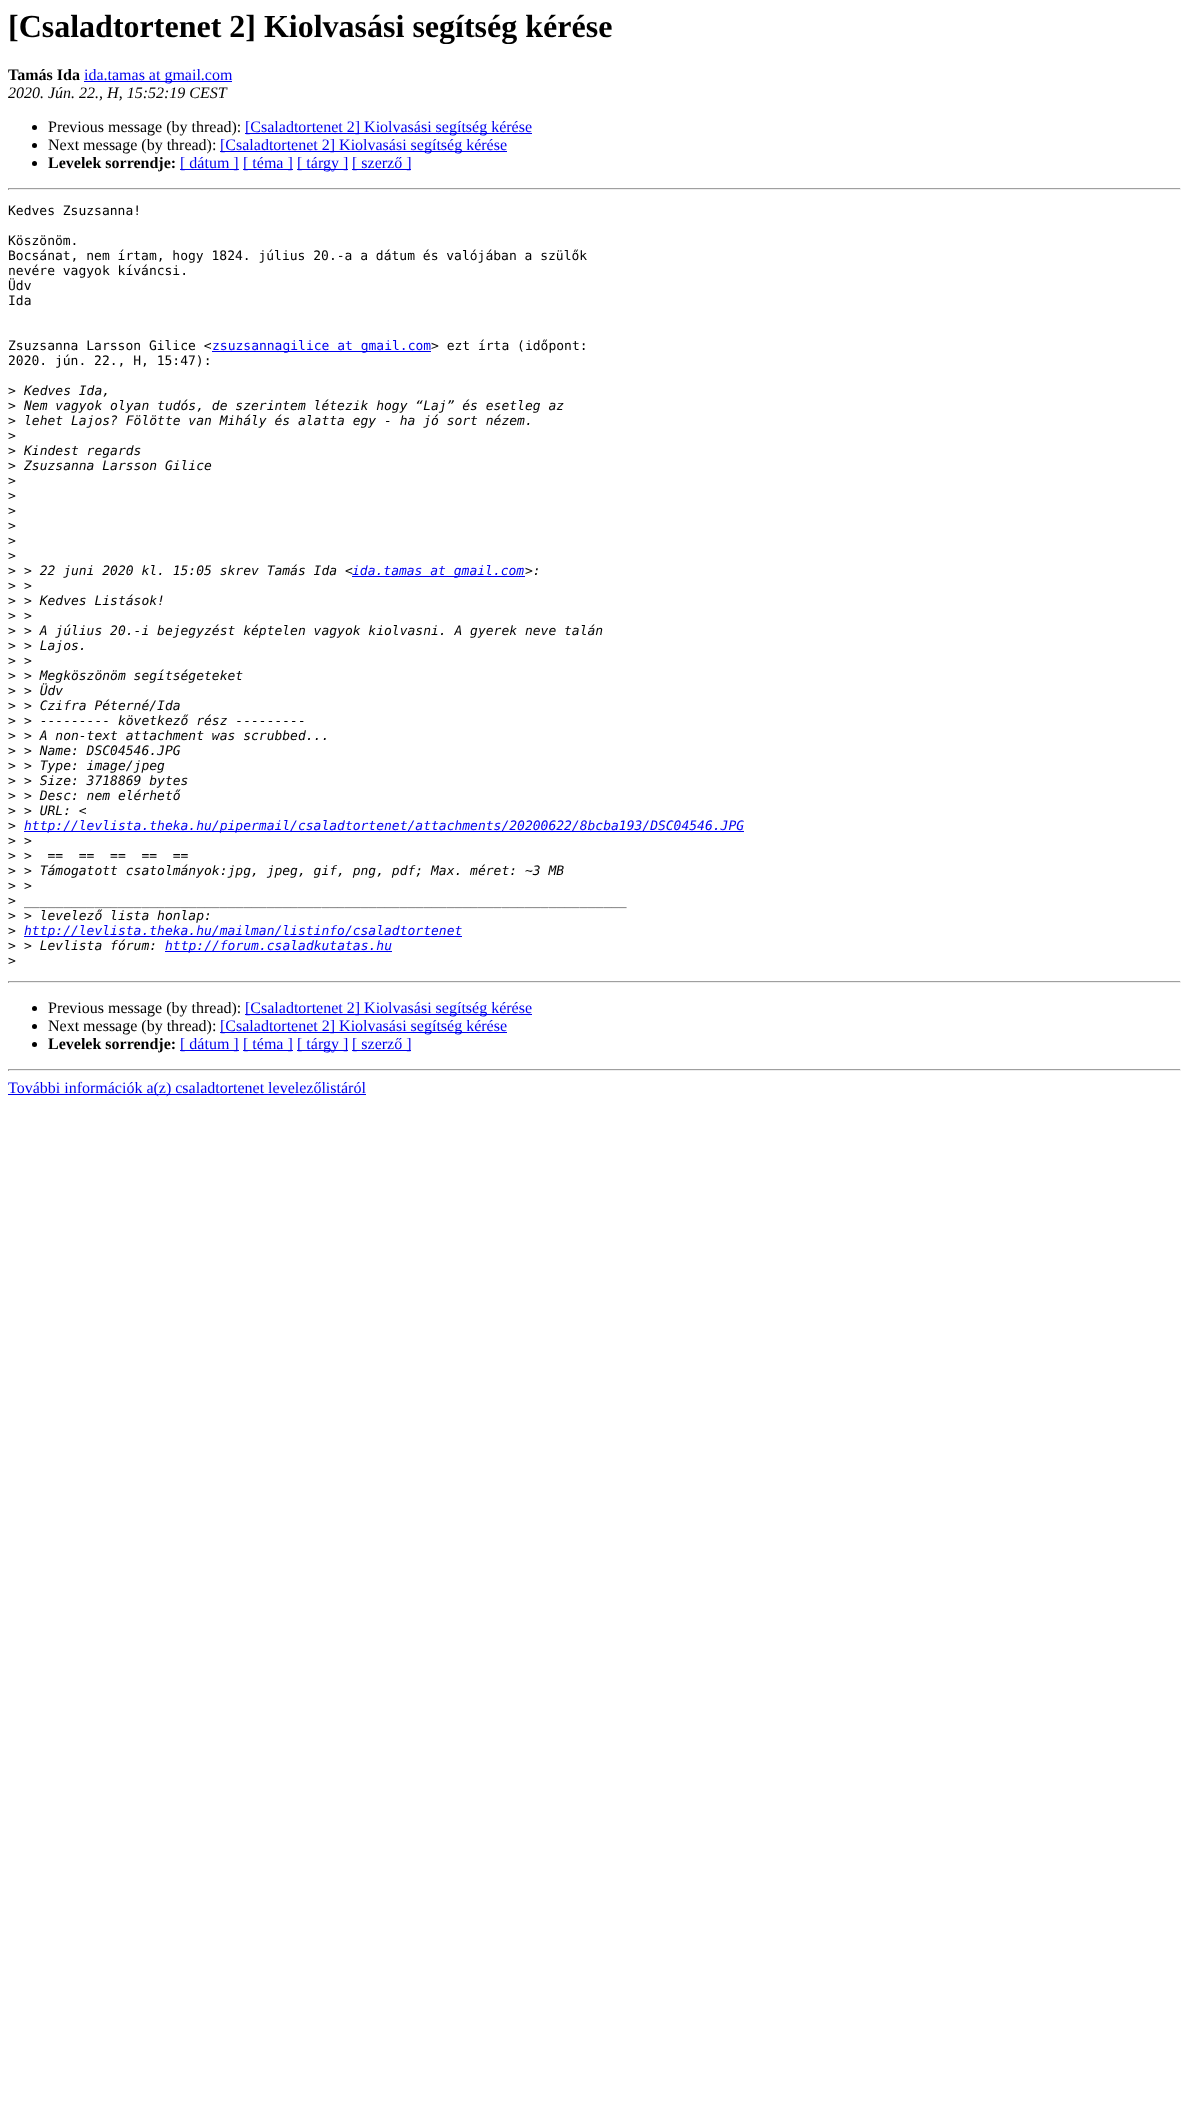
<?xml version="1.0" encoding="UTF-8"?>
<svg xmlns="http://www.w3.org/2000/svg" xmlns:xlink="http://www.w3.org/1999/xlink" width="1189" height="2117">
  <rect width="100%" height="100%" fill="#ffffff" />
  <rect x="84" y="81" width="148" height="1" fill="#0000ee" />
  <circle cx="34.5" cy="127.5" r="2.5" fill="#000000" />
  <rect x="245" y="133" width="287" height="1" fill="#0000ee" />
  <circle cx="34.5" cy="145.5" r="2.5" fill="#000000" />
  <rect x="220" y="151" width="287" height="1" fill="#0000ee" />
  <circle cx="34.5" cy="163.5" r="2.5" fill="#000000" />
  <rect x="180" y="169" width="59" height="1" fill="#0000ee" />
  <rect x="243" y="169" width="50" height="1" fill="#0000ee" />
  <rect x="297" y="169" width="51" height="1" fill="#0000ee" />
  <rect x="352" y="169" width="59" height="1" fill="#0000ee" />
  <rect x="8" y="188" width="1173" height="1" fill="#9f9f9f" />
  <rect x="1180" y="188" width="1" height="2" fill="#eeeeee" />
  <rect x="8" y="189" width="1173" height="1" fill="#eeeeee" />
  <rect x="8" y="188" width="1" height="2" fill="#9f9f9f" />
  <rect x="212" y="351" width="219" height="1" fill="#0000ee" />
  <rect x="352" y="576" width="173" height="1" fill="#0000ee" />
  <rect x="24" y="831" width="720" height="1" fill="#0000ee" />
  <rect x="24" y="936" width="438" height="1" fill="#0000ee" />
  <rect x="165" y="951" width="227" height="1" fill="#0000ee" />
  <rect x="8" y="981" width="1173" height="1" fill="#9f9f9f" />
  <rect x="1180" y="981" width="1" height="2" fill="#eeeeee" />
  <rect x="8" y="982" width="1173" height="1" fill="#eeeeee" />
  <rect x="8" y="981" width="1" height="2" fill="#9f9f9f" />
  <circle cx="34.5" cy="1008.5" r="2.5" fill="#000000" />
  <rect x="245" y="1014" width="287" height="1" fill="#0000ee" />
  <circle cx="34.5" cy="1026.5" r="2.5" fill="#000000" />
  <rect x="220" y="1032" width="287" height="1" fill="#0000ee" />
  <circle cx="34.5" cy="1044.5" r="2.5" fill="#000000" />
  <rect x="180" y="1050" width="59" height="1" fill="#0000ee" />
  <rect x="243" y="1050" width="50" height="1" fill="#0000ee" />
  <rect x="297" y="1050" width="51" height="1" fill="#0000ee" />
  <rect x="352" y="1050" width="59" height="1" fill="#0000ee" />
  <rect x="8" y="1069" width="1173" height="1" fill="#9f9f9f" />
  <rect x="1180" y="1069" width="1" height="2" fill="#eeeeee" />
  <rect x="8" y="1070" width="1173" height="1" fill="#eeeeee" />
  <rect x="8" y="1069" width="1" height="2" fill="#9f9f9f" />
  <rect x="8" y="1094" width="358" height="1" fill="#0000ee" />
  <text x="8" y="37" style="font-family: Liberation Serif; font-size: 32px; font-weight: bold; fill: #000000">[Csaladtortenet 2] Kiolvasási segítség kérése</text>
  <text x="8" y="80" style="font-family: Liberation Serif; font-size: 16px; font-weight: bold; fill: #000000">Tamás Ida</text>
  <text x="84" y="80" style="font-family: Liberation Serif; font-size: 16px; fill: #0000ee">ida.tamas at gmail.com</text>
  <text x="8" y="98" style="font-family: Liberation Serif; font-size: 16px; font-style: italic; fill: #000000">2020. Jún. 22., H, 15:52:19 CEST</text>
  <text x="48" y="132" style="font-family: Liberation Serif; font-size: 16px; fill: #000000">Previous message (by thread):</text>
  <text x="245" y="132" style="font-family: Liberation Serif; font-size: 16px; fill: #0000ee">[Csaladtortenet 2] Kiolvasási segítség kérése</text>
  <text x="48" y="150" style="font-family: Liberation Serif; font-size: 16px; fill: #000000">Next message (by thread):</text>
  <text x="220" y="150" style="font-family: Liberation Serif; font-size: 16px; fill: #0000ee">[Csaladtortenet 2] Kiolvasási segítség kérése</text>
  <text x="48" y="168" style="font-family: Liberation Serif; font-size: 16px; font-weight: bold; fill: #000000">Levelek sorrendje:</text>
  <text x="180" y="168" style="font-family: Liberation Serif; font-size: 16px; fill: #0000ee">[ dátum ]</text>
  <text x="243" y="168" style="font-family: Liberation Serif; font-size: 16px; fill: #0000ee">[ téma ]</text>
  <text x="297" y="168" style="font-family: Liberation Serif; font-size: 16px; fill: #0000ee">[ tárgy ]</text>
  <text x="352" y="168" style="font-family: Liberation Serif; font-size: 16px; fill: #0000ee">[ szerző ]</text>
  <text x="8" y="215" style="font-family: DejaVu Sans Mono; font-size: 13px; fill: #000000">Kedves Zsuzsanna!</text>
  <text x="8" y="245" style="font-family: DejaVu Sans Mono; font-size: 13px; fill: #000000">Köszönöm.</text>
  <text x="8" y="260" style="font-family: DejaVu Sans Mono; font-size: 13px; fill: #000000">Bocsánat, nem írtam, hogy 1824. július 20.-a a dátum és valójában a szülők</text>
  <text x="8" y="275" style="font-family: DejaVu Sans Mono; font-size: 13px; fill: #000000">nevére vagyok kíváncsi.</text>
  <text x="8" y="290" style="font-family: DejaVu Sans Mono; font-size: 13px; fill: #000000">Üdv</text>
  <text x="8" y="305" style="font-family: DejaVu Sans Mono; font-size: 13px; fill: #000000">Ida</text>
  <text x="8" y="350" style="font-family: DejaVu Sans Mono; font-size: 13px; fill: #000000">Zsuzsanna Larsson Gilice &lt;</text>
  <text x="212" y="350" style="font-family: DejaVu Sans Mono; font-size: 13px; fill: #0000ee">zsuzsannagilice at gmail.com</text>
  <text x="431" y="350" style="font-family: DejaVu Sans Mono; font-size: 13px; fill: #000000">&gt; ezt írta (időpont:</text>
  <text x="8" y="365" style="font-family: DejaVu Sans Mono; font-size: 13px; fill: #000000">2020. jún. 22., H, 15:47):</text>
  <text x="8" y="395" style="font-family: DejaVu Sans Mono; font-size: 13px; fill: #000000">&gt;</text>
  <text x="24" y="395" style="font-family: DejaVu Sans Mono; font-size: 13px; font-style: italic; fill: #000000">Kedves Ida,</text>
  <text x="8" y="410" style="font-family: DejaVu Sans Mono; font-size: 13px; fill: #000000">&gt;</text>
  <text x="24" y="410" style="font-family: DejaVu Sans Mono; font-size: 13px; font-style: italic; fill: #000000">Nem vagyok olyan tudós, de szerintem létezik hogy “Laj” és esetleg az</text>
  <text x="8" y="425" style="font-family: DejaVu Sans Mono; font-size: 13px; fill: #000000">&gt;</text>
  <text x="24" y="425" style="font-family: DejaVu Sans Mono; font-size: 13px; font-style: italic; fill: #000000">lehet Lajos? Fölötte van Mihály és alatta egy - ha jó sort nézem.</text>
  <text x="8" y="440" style="font-family: DejaVu Sans Mono; font-size: 13px; fill: #000000">&gt;</text>
  <text x="8" y="455" style="font-family: DejaVu Sans Mono; font-size: 13px; fill: #000000">&gt;</text>
  <text x="24" y="455" style="font-family: DejaVu Sans Mono; font-size: 13px; font-style: italic; fill: #000000">Kindest regards</text>
  <text x="8" y="470" style="font-family: DejaVu Sans Mono; font-size: 13px; fill: #000000">&gt;</text>
  <text x="24" y="470" style="font-family: DejaVu Sans Mono; font-size: 13px; font-style: italic; fill: #000000">Zsuzsanna Larsson Gilice</text>
  <text x="8" y="485" style="font-family: DejaVu Sans Mono; font-size: 13px; fill: #000000">&gt;</text>
  <text x="8" y="500" style="font-family: DejaVu Sans Mono; font-size: 13px; fill: #000000">&gt;</text>
  <text x="8" y="515" style="font-family: DejaVu Sans Mono; font-size: 13px; fill: #000000">&gt;</text>
  <text x="8" y="530" style="font-family: DejaVu Sans Mono; font-size: 13px; fill: #000000">&gt;</text>
  <text x="8" y="545" style="font-family: DejaVu Sans Mono; font-size: 13px; fill: #000000">&gt;</text>
  <text x="8" y="560" style="font-family: DejaVu Sans Mono; font-size: 13px; fill: #000000">&gt;</text>
  <text x="8" y="575" style="font-family: DejaVu Sans Mono; font-size: 13px; fill: #000000">&gt;</text>
  <text x="24" y="575" style="font-family: DejaVu Sans Mono; font-size: 13px; font-style: italic; fill: #000000">&gt; 22 juni 2020 kl. 15:05 skrev Tamás Ida &lt;</text>
  <text x="352" y="575" style="font-family: DejaVu Sans Mono; font-size: 13px; font-style: italic; fill: #0000ee">ida.tamas at gmail.com</text>
  <text x="525" y="575" style="font-family: DejaVu Sans Mono; font-size: 13px; font-style: italic; fill: #000000">&gt;:</text>
  <text x="8" y="590" style="font-family: DejaVu Sans Mono; font-size: 13px; fill: #000000">&gt;</text>
  <text x="24" y="590" style="font-family: DejaVu Sans Mono; font-size: 13px; font-style: italic; fill: #000000">&gt;</text>
  <text x="8" y="605" style="font-family: DejaVu Sans Mono; font-size: 13px; fill: #000000">&gt;</text>
  <text x="24" y="605" style="font-family: DejaVu Sans Mono; font-size: 13px; font-style: italic; fill: #000000">&gt; Kedves Listások!</text>
  <text x="8" y="620" style="font-family: DejaVu Sans Mono; font-size: 13px; fill: #000000">&gt;</text>
  <text x="24" y="620" style="font-family: DejaVu Sans Mono; font-size: 13px; font-style: italic; fill: #000000">&gt;</text>
  <text x="8" y="635" style="font-family: DejaVu Sans Mono; font-size: 13px; fill: #000000">&gt;</text>
  <text x="24" y="635" style="font-family: DejaVu Sans Mono; font-size: 13px; font-style: italic; fill: #000000">&gt; A július 20.-i bejegyzést képtelen vagyok kiolvasni. A gyerek neve talán</text>
  <text x="8" y="650" style="font-family: DejaVu Sans Mono; font-size: 13px; fill: #000000">&gt;</text>
  <text x="24" y="650" style="font-family: DejaVu Sans Mono; font-size: 13px; font-style: italic; fill: #000000">&gt; Lajos.</text>
  <text x="8" y="665" style="font-family: DejaVu Sans Mono; font-size: 13px; fill: #000000">&gt;</text>
  <text x="24" y="665" style="font-family: DejaVu Sans Mono; font-size: 13px; font-style: italic; fill: #000000">&gt;</text>
  <text x="8" y="680" style="font-family: DejaVu Sans Mono; font-size: 13px; fill: #000000">&gt;</text>
  <text x="24" y="680" style="font-family: DejaVu Sans Mono; font-size: 13px; font-style: italic; fill: #000000">&gt; Megköszönöm segítségeteket</text>
  <text x="8" y="695" style="font-family: DejaVu Sans Mono; font-size: 13px; fill: #000000">&gt;</text>
  <text x="24" y="695" style="font-family: DejaVu Sans Mono; font-size: 13px; font-style: italic; fill: #000000">&gt; Üdv</text>
  <text x="8" y="710" style="font-family: DejaVu Sans Mono; font-size: 13px; fill: #000000">&gt;</text>
  <text x="24" y="710" style="font-family: DejaVu Sans Mono; font-size: 13px; font-style: italic; fill: #000000">&gt; Czifra Péterné/Ida</text>
  <text x="8" y="725" style="font-family: DejaVu Sans Mono; font-size: 13px; fill: #000000">&gt;</text>
  <text x="24" y="725" style="font-family: DejaVu Sans Mono; font-size: 13px; font-style: italic; fill: #000000">&gt; --------- következő rész ---------</text>
  <text x="8" y="740" style="font-family: DejaVu Sans Mono; font-size: 13px; fill: #000000">&gt;</text>
  <text x="24" y="740" style="font-family: DejaVu Sans Mono; font-size: 13px; font-style: italic; fill: #000000">&gt; A non-text attachment was scrubbed...</text>
  <text x="8" y="755" style="font-family: DejaVu Sans Mono; font-size: 13px; fill: #000000">&gt;</text>
  <text x="24" y="755" style="font-family: DejaVu Sans Mono; font-size: 13px; font-style: italic; fill: #000000">&gt; Name: DSC04546.JPG</text>
  <text x="8" y="770" style="font-family: DejaVu Sans Mono; font-size: 13px; fill: #000000">&gt;</text>
  <text x="24" y="770" style="font-family: DejaVu Sans Mono; font-size: 13px; font-style: italic; fill: #000000">&gt; Type: image/jpeg</text>
  <text x="8" y="785" style="font-family: DejaVu Sans Mono; font-size: 13px; fill: #000000">&gt;</text>
  <text x="24" y="785" style="font-family: DejaVu Sans Mono; font-size: 13px; font-style: italic; fill: #000000">&gt; Size: 3718869 bytes</text>
  <text x="8" y="800" style="font-family: DejaVu Sans Mono; font-size: 13px; fill: #000000">&gt;</text>
  <text x="24" y="800" style="font-family: DejaVu Sans Mono; font-size: 13px; font-style: italic; fill: #000000">&gt; Desc: nem elérhető</text>
  <text x="8" y="815" style="font-family: DejaVu Sans Mono; font-size: 13px; fill: #000000">&gt;</text>
  <text x="24" y="815" style="font-family: DejaVu Sans Mono; font-size: 13px; font-style: italic; fill: #000000">&gt; URL: &lt;</text>
  <text x="8" y="830" style="font-family: DejaVu Sans Mono; font-size: 13px; fill: #000000">&gt;</text>
  <text x="24" y="830" style="font-family: DejaVu Sans Mono; font-size: 13px; font-style: italic; fill: #0000ee">http://levlista.theka.hu/pipermail/csaladtortenet/attachments/20200622/8bcba193/DSC04546.JPG</text>
  <text x="8" y="845" style="font-family: DejaVu Sans Mono; font-size: 13px; fill: #000000">&gt;</text>
  <text x="24" y="845" style="font-family: DejaVu Sans Mono; font-size: 13px; font-style: italic; fill: #000000">&gt;</text>
  <text x="8" y="860" style="font-family: DejaVu Sans Mono; font-size: 13px; fill: #000000">&gt;</text>
  <text x="24" y="860" style="font-family: DejaVu Sans Mono; font-size: 13px; font-style: italic; fill: #000000" xml:space="preserve">&gt;  ==  ==  ==  ==  ==</text>
  <text x="8" y="875" style="font-family: DejaVu Sans Mono; font-size: 13px; fill: #000000">&gt;</text>
  <text x="24" y="875" style="font-family: DejaVu Sans Mono; font-size: 13px; font-style: italic; fill: #000000">&gt; Támogatott csatolmányok:jpg, jpeg, gif, png, pdf; Max. méret: ~3 MB</text>
  <text x="8" y="890" style="font-family: DejaVu Sans Mono; font-size: 13px; fill: #000000">&gt;</text>
  <text x="24" y="890" style="font-family: DejaVu Sans Mono; font-size: 13px; font-style: italic; fill: #000000">&gt;</text>
  <text x="8" y="905" style="font-family: DejaVu Sans Mono; font-size: 13px; fill: #000000">&gt;</text>
  <text x="24" y="905" style="font-family: DejaVu Sans Mono; font-size: 13px; font-style: italic; fill: #000000">_____________________________________________________________________________</text>
  <text x="8" y="920" style="font-family: DejaVu Sans Mono; font-size: 13px; fill: #000000">&gt;</text>
  <text x="24" y="920" style="font-family: DejaVu Sans Mono; font-size: 13px; font-style: italic; fill: #000000">&gt; levelező lista honlap:</text>
  <text x="8" y="935" style="font-family: DejaVu Sans Mono; font-size: 13px; fill: #000000">&gt;</text>
  <text x="24" y="935" style="font-family: DejaVu Sans Mono; font-size: 13px; font-style: italic; fill: #0000ee">http://levlista.theka.hu/mailman/listinfo/csaladtortenet</text>
  <text x="8" y="950" style="font-family: DejaVu Sans Mono; font-size: 13px; fill: #000000">&gt;</text>
  <text x="24" y="950" style="font-family: DejaVu Sans Mono; font-size: 13px; font-style: italic; fill: #000000">&gt; Levlista fórum:</text>
  <text x="165" y="950" style="font-family: DejaVu Sans Mono; font-size: 13px; font-style: italic; fill: #0000ee">http://forum.csaladkutatas.hu</text>
  <text x="8" y="965" style="font-family: DejaVu Sans Mono; font-size: 13px; fill: #000000">&gt;</text>
  <text x="48" y="1013" style="font-family: Liberation Serif; font-size: 16px; fill: #000000">Previous message (by thread):</text>
  <text x="245" y="1013" style="font-family: Liberation Serif; font-size: 16px; fill: #0000ee">[Csaladtortenet 2] Kiolvasási segítség kérése</text>
  <text x="48" y="1031" style="font-family: Liberation Serif; font-size: 16px; fill: #000000">Next message (by thread):</text>
  <text x="220" y="1031" style="font-family: Liberation Serif; font-size: 16px; fill: #0000ee">[Csaladtortenet 2] Kiolvasási segítség kérése</text>
  <text x="48" y="1049" style="font-family: Liberation Serif; font-size: 16px; font-weight: bold; fill: #000000">Levelek sorrendje:</text>
  <text x="180" y="1049" style="font-family: Liberation Serif; font-size: 16px; fill: #0000ee">[ dátum ]</text>
  <text x="243" y="1049" style="font-family: Liberation Serif; font-size: 16px; fill: #0000ee">[ téma ]</text>
  <text x="297" y="1049" style="font-family: Liberation Serif; font-size: 16px; fill: #0000ee">[ tárgy ]</text>
  <text x="352" y="1049" style="font-family: Liberation Serif; font-size: 16px; fill: #0000ee">[ szerző ]</text>
  <text x="8" y="1093" style="font-family: Liberation Serif; font-size: 16px; fill: #0000ee">További információk a(z) csaladtortenet levelezőlistáról</text>
</svg>
